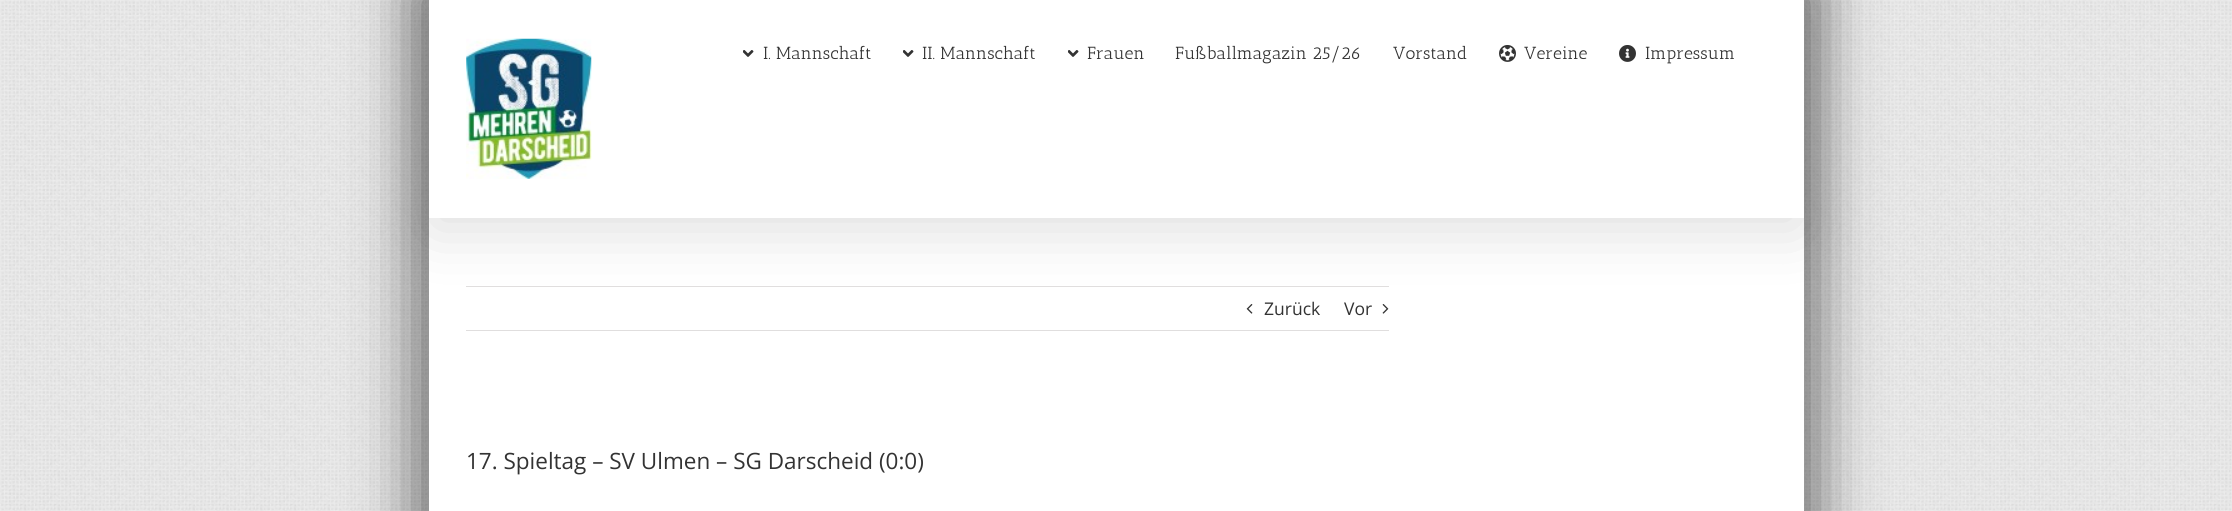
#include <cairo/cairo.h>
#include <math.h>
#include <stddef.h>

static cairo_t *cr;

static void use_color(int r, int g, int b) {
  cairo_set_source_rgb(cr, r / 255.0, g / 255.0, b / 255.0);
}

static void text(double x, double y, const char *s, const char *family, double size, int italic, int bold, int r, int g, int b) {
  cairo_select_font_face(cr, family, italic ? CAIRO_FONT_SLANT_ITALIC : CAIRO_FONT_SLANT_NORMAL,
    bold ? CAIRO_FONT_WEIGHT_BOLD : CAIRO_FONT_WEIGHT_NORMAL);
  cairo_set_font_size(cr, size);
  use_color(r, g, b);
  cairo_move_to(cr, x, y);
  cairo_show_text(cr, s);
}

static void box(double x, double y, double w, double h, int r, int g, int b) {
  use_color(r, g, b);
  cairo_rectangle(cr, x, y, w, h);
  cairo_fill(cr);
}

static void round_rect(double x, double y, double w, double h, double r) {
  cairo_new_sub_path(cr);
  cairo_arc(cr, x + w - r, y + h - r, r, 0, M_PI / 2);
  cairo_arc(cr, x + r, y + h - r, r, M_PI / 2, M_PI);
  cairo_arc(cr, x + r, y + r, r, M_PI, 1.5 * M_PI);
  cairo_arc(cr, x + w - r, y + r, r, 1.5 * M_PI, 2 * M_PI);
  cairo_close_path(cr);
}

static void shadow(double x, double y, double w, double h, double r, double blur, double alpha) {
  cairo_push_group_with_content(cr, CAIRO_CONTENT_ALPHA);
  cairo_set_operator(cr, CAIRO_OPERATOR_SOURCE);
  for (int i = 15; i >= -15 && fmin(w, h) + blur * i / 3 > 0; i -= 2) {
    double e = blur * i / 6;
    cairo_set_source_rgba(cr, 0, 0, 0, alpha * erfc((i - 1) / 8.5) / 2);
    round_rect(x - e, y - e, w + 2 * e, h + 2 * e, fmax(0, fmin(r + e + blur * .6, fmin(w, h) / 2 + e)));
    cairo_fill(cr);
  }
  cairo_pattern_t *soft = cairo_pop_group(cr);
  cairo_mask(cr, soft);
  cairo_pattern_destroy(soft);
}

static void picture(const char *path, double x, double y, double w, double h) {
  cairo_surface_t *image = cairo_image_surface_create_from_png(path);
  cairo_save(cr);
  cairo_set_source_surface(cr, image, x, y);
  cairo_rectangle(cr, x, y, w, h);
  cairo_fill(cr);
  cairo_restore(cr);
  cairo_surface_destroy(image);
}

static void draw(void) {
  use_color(255, 255, 255);
  cairo_paint(cr);
  picture("img_01.png", 0, 0, 2232, 511);
  use_color(0, 0, 0);
  shadow(416, -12, 1400, 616, 0, 31, 0.55);
  box(429, 218, 1375, 293, 255, 255, 255);
  box(466, 286, 923, 1, 224, 222, 222);
  picture("img_06.png", 1246, 304, 7, 10);
  picture("img_07.png", 1382, 304, 7, 10);
  use_color(0, 0, 0);
  shadow(431, 15, 1370, 213, 0, 31, 0.14);
  box(429, 0, 1375, 218, 255, 255, 255);
  picture("img_02.png", 466, 38, 126, 141);
  picture("img_03.png", 743, 50, 11, 7);
  picture("img_03.png", 903, 50, 11, 7);
  picture("img_03.png", 1068, 50, 11, 7);
  picture("img_04.png", 1499, 45, 17, 17);
  picture("img_05.png", 1619, 45, 17, 17);
  box(466, 330, 923, 1, 224, 222, 222);
  text(763, 59, "I. Mannschaft", "Antic Slab", 17.5, 0, 0, 51, 51, 51);
  text(922, 59, "II. Mannschaft", "Antic Slab", 17.5, 0, 0, 51, 51, 51);
  text(1087, 59, "Frauen", "Antic Slab", 17.5, 0, 0, 51, 51, 51);
  text(1175, 59, "Fußballmagazin 25/26", "Antic Slab", 17.5, 0, 0, 51, 51, 51);
  text(1393, 59, "Vorstand", "Antic Slab", 17.5, 0, 0, 51, 51, 51);
  text(1524, 59, "Vereine", "Antic Slab", 17.5, 0, 0, 51, 51, 51);
  text(1645, 59, "Impressum", "Antic Slab", 17.5, 0, 0, 51, 51, 51);
  text(1264, 315, "Zurück", "Open Sans", 17.5, 0, 0, 51, 51, 51);
  text(1344, 315, "Vor", "Open Sans", 17.5, 0, 0, 51, 51, 51);
  text(466, 469, "17. Spieltag – SV Ulmen – SG Darscheid (0:0)", "Open Sans", 22.5, 0, 0, 51, 51, 51);
}

int main(void) {
  cairo_surface_t *surface = cairo_image_surface_create(CAIRO_FORMAT_RGB24, 2232, 511);
  cr = cairo_create(surface);
  cairo_font_options_t *options = cairo_font_options_create();
  cairo_font_options_set_hint_metrics(options, CAIRO_HINT_METRICS_OFF);
  cairo_font_options_set_hint_style(options, CAIRO_HINT_STYLE_NONE);
  cairo_set_font_options(cr, options);
  cairo_set_miter_limit(cr, 4);
  draw();
  cairo_surface_write_to_png(surface, "out.png");
  cairo_font_options_destroy(options);
  cairo_destroy(cr);
  cairo_surface_destroy(surface);
  return 0;
}
